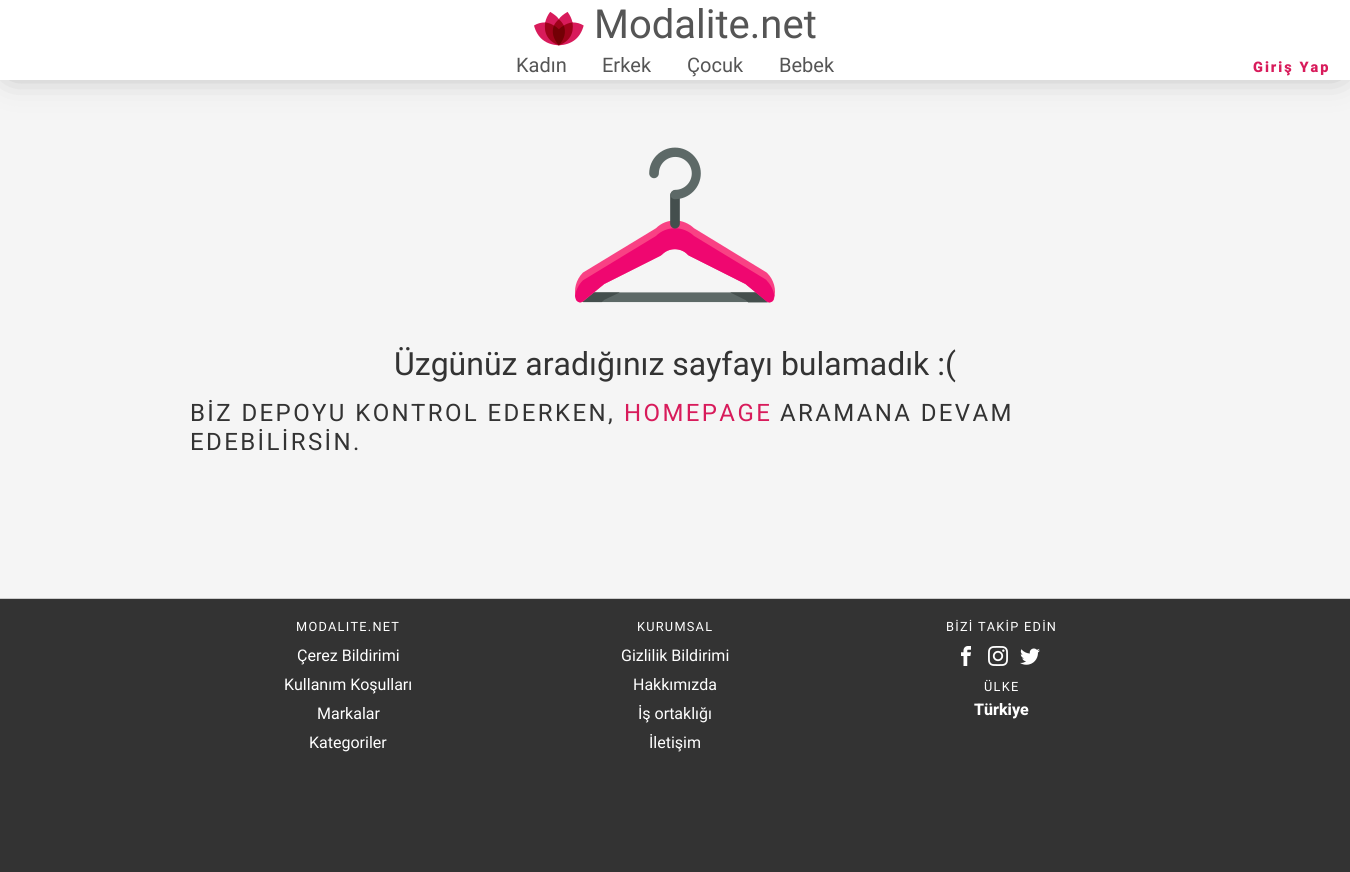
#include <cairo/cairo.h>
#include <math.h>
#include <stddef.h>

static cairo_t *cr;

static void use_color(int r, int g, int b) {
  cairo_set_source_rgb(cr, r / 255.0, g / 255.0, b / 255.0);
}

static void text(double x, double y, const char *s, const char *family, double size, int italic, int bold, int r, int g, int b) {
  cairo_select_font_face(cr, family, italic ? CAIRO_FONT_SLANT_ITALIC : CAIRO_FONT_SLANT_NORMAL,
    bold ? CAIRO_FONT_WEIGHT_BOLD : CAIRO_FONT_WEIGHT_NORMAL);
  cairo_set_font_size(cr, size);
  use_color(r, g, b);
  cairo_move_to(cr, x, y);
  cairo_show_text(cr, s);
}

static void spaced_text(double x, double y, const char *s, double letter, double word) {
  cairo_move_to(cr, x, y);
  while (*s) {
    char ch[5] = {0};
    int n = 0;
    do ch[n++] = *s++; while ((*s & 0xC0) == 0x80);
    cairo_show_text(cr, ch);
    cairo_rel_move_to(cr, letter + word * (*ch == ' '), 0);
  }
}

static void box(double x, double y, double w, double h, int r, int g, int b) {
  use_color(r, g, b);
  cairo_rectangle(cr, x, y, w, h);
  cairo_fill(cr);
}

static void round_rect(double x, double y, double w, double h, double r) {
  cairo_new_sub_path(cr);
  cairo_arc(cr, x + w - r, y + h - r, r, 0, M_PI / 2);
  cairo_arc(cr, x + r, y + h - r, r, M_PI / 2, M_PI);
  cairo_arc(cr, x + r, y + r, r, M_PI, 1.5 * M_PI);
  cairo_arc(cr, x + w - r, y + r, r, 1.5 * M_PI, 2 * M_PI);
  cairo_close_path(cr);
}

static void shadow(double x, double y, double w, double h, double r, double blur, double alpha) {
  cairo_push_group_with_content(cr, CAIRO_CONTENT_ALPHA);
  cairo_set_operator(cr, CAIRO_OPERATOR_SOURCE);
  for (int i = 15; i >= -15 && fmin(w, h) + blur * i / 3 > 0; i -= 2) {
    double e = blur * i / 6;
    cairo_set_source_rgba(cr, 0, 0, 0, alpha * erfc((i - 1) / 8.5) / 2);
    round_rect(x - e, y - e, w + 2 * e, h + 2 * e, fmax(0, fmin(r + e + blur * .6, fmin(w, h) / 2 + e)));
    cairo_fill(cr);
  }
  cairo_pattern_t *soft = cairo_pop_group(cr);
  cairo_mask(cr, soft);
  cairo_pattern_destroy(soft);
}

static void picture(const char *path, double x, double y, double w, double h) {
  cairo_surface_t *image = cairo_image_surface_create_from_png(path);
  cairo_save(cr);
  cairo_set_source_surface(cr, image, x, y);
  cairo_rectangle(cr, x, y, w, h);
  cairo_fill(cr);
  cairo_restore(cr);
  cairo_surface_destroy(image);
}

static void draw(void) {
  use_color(245, 245, 245);
  cairo_paint(cr);
  use_color(0, 0, 0);
  shadow(11, 11, 1328, 58, 0, 17.5, 0.4);
  box(0, 0, 1350, 80, 255, 255, 255);
  picture("img_01.png", 534, 11, 50, 35);
  picture("img_02.png", 575, 147, 200, 156);
  box(0, 599, 1350, 273, 51, 51, 51);
  box(0, 598, 1350, 1, 204, 204, 204);
  picture("img_03.png", 961, 646, 10, 20);
  picture("img_04.png", 988, 646, 20, 20);
  picture("img_05.png", 1020, 648, 20, 17);
  text(594, 38, "Modalite.net", "Roboto", 40, 0, 0, 85, 85, 85);
  text(516, 72, "Kadın", "Roboto", 20, 0, 0, 85, 85, 85);
  text(602, 72, "Erkek", "Roboto", 20, 0, 0, 85, 85, 85);
  text(687, 72, "Çocuk", "Roboto", 20, 0, 0, 85, 85, 85);
  text(779, 72, "Bebek", "Roboto", 20, 0, 0, 85, 85, 85);
  cairo_select_font_face(cr, "Roboto Black", CAIRO_FONT_SLANT_NORMAL, CAIRO_FONT_WEIGHT_NORMAL);
  cairo_set_font_size(cr, 14.5);
  use_color(216, 27, 91);
  spaced_text(1253, 72, "Giriş Yap", 2, 0);
  text(394, 375, "Üzgünüz aradığınız sayfayı bulamadık :(", "Roboto", 32, 0, 0, 51, 51, 51);
  cairo_set_font_size(cr, 24);
  spaced_text(190, 421, "BİZ DEPOYU KONTROL EDERKEN,", 2.4, 0);
  use_color(216, 27, 91);
  spaced_text(624, 421, "HOMEPAGE", 2.4, 0);
  use_color(51, 51, 51);
  spaced_text(780, 421, "ARAMANA DEVAM", 2.4, 0);
  spaced_text(190, 450, "EDEBİLİRSİN.", 2.4, 0);
  cairo_set_font_size(cr, 12.75);
  use_color(255, 255, 255);
  spaced_text(296, 631, "MODALITE.NET", 1.25, 0);
  text(297, 661, "Çerez Bildirimi", "Roboto", 16, 0, 0, 255, 255, 255);
  text(284, 690, "Kullanım Koşulları", "Roboto", 16, 0, 0, 255, 255, 255);
  text(317, 719, "Markalar", "Roboto", 16, 0, 0, 255, 255, 255);
  text(309, 748, "Kategoriler", "Roboto", 16, 0, 0, 255, 255, 255);
  cairo_set_font_size(cr, 12.75);
  spaced_text(637, 631, "KURUMSAL", 1.25, 0);
  text(621, 661, "Gizlilik Bildirimi", "Roboto", 16, 0, 0, 255, 255, 255);
  text(633, 690, "Hakkımızda", "Roboto", 16, 0, 0, 255, 255, 255);
  text(638, 719, "İş ortaklığı", "Roboto", 16, 0, 0, 255, 255, 255);
  text(649, 748, "İletişim", "Roboto", 16, 0, 0, 255, 255, 255);
  cairo_set_font_size(cr, 12.75);
  spaced_text(946, 631, "BİZİ TAKİP EDİN", 1.25, 0);
  spaced_text(984, 691, "ÜLKE", 1.25, 0);
  text(974, 715, "Türkiye", "Roboto ExtraBold", 16, 0, 0, 255, 255, 255);
}

int main(void) {
  cairo_surface_t *surface = cairo_image_surface_create(CAIRO_FORMAT_RGB24, 1350, 872);
  cr = cairo_create(surface);
  cairo_font_options_t *options = cairo_font_options_create();
  cairo_font_options_set_hint_metrics(options, CAIRO_HINT_METRICS_OFF);
  cairo_font_options_set_hint_style(options, CAIRO_HINT_STYLE_NONE);
  cairo_set_font_options(cr, options);
  cairo_set_miter_limit(cr, 4);
  draw();
  cairo_surface_write_to_png(surface, "out.png");
  cairo_font_options_destroy(options);
  cairo_destroy(cr);
  cairo_surface_destroy(surface);
  return 0;
}
